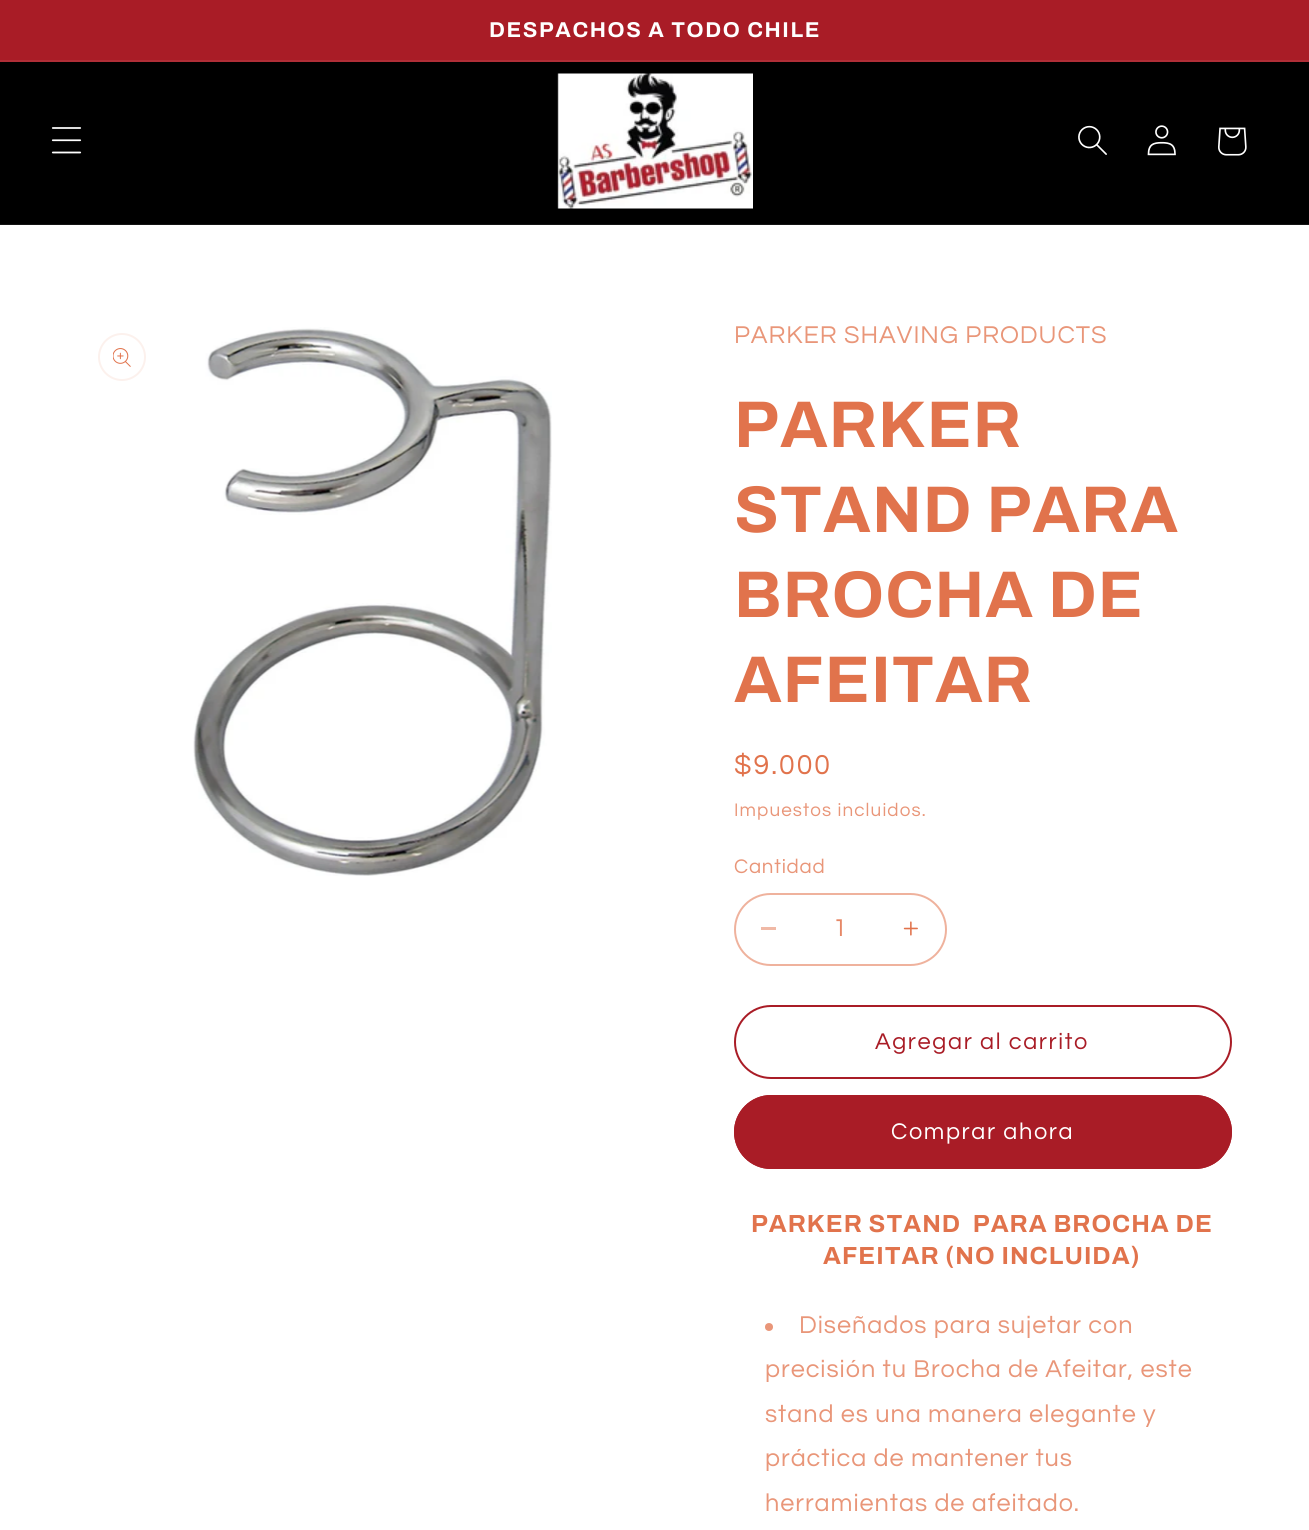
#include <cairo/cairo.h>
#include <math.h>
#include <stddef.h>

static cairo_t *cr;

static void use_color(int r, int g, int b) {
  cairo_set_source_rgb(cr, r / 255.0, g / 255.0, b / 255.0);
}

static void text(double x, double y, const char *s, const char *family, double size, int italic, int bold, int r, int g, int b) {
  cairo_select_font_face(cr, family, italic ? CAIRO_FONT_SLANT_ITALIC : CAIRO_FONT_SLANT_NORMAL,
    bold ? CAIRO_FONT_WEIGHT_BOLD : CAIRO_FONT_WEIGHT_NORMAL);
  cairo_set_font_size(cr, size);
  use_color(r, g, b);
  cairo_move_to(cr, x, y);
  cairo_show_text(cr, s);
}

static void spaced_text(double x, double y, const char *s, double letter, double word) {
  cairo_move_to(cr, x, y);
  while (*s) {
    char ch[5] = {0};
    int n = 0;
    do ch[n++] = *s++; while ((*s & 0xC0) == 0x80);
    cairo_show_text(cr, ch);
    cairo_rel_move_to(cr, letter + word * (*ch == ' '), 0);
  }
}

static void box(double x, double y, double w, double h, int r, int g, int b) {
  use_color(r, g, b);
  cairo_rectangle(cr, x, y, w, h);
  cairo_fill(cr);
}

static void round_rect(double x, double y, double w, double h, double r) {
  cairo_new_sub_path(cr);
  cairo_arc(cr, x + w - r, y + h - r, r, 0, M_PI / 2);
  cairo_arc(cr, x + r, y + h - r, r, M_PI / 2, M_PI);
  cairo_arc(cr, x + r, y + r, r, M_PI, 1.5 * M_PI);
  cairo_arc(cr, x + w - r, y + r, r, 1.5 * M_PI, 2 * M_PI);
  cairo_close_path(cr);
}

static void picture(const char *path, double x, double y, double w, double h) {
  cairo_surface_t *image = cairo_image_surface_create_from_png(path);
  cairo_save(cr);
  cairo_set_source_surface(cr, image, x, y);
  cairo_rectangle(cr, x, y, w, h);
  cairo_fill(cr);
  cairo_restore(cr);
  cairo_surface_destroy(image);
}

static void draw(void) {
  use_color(255, 255, 255);
  cairo_paint(cr);
  box(0, 0, 1309, 60, 169, 28, 38);
  box(0, 60, 1309, 2, 176, 46, 55);
  box(0, 62, 1309, 162, 0, 0, 0);
  box(0, 224, 1309, 1, 20, 20, 20);
  picture("img_01.png", 51, 127, 31, 27);
  picture("img_02.png", 557, 73, 196, 136);
  picture("img_03.png", 1078, 125, 29, 30);
  picture("img_04.png", 1147, 125, 29, 31);
  picture("img_05.png", 1218, 127, 29, 29);
  cairo_arc(cr, 122, 357, 23, 0, 2 * M_PI);
  use_color(252, 241, 237);
  cairo_stroke(cr);
  picture("img_06.png", 113, 348, 18, 19);
  picture("img_07.png", 193, 327, 359, 549);
  box(761, 927, 15, 3, 240, 185, 166);
  picture("img_08.png", 903, 921, 15, 15);
  round_rect(735, 894, 211, 71, 35.5);
  use_color(239, 178, 157);
  cairo_stroke(cr);
  round_rect(735, 1006, 496, 72, 36);
  use_color(169, 28, 38);
  cairo_stroke(cr);
  round_rect(734, 1095, 498, 74, 37);
  cairo_fill(cr);
  round_rect(735, 1096, 496, 72, 36);
  cairo_stroke(cr);
  use_color(233, 150, 121);
  cairo_arc(cr, 769, 1327, 4, 0, 2 * M_PI);
  cairo_fill(cr);
  cairo_select_font_face(cr, "Archivo", CAIRO_FONT_SLANT_NORMAL, CAIRO_FONT_WEIGHT_BOLD);
  cairo_set_font_size(cr, 21.5);
  use_color(255, 255, 255);
  spaced_text(489, 37, "DESPACHOS A TODO CHILE", 1.6, 0);
  cairo_select_font_face(cr, "Questrial", CAIRO_FONT_SLANT_NORMAL, CAIRO_FONT_WEIGHT_NORMAL);
  cairo_set_font_size(cr, 25.25);
  use_color(233, 150, 121);
  spaced_text(734, 343, "PARKER SHAVING PRODUCTS", 0.95, 0);
  cairo_select_font_face(cr, "Archivo", CAIRO_FONT_SLANT_NORMAL, CAIRO_FONT_WEIGHT_BOLD);
  cairo_set_font_size(cr, 66);
  use_color(225, 115, 76);
  spaced_text(734, 447, "PARKER", 1, 0);
  spaced_text(734, 532, "STAND PARA", 1, 0);
  spaced_text(734, 617, "BROCHA DE", 1, 0);
  spaced_text(734, 702, "AFEITAR", 1, 0);
  cairo_select_font_face(cr, "Questrial", CAIRO_FONT_SLANT_NORMAL, CAIRO_FONT_WEIGHT_NORMAL);
  cairo_set_font_size(cr, 28.5);
  spaced_text(734, 774, "$9.000", 2, 0);
  cairo_set_font_size(cr, 18.9);
  use_color(233, 150, 121);
  spaced_text(734, 816, "Impuestos incluidos.", 1.1, 0);
  cairo_set_font_size(cr, 20.5);
  spaced_text(734, 873, "Cantidad", 0.75, 0);
  text(833, 936, "1", "Questrial", 25.25, 0, 0, 230, 136, 103);
  cairo_set_font_size(cr, 23.6);
  use_color(169, 28, 38);
  spaced_text(875, 1049, "Agregar al carrito", 1.6, 0);
  use_color(255, 255, 255);
  spaced_text(891, 1139, "Comprar ahora", 1.6, 0);
  cairo_select_font_face(cr, "Archivo", CAIRO_FONT_SLANT_NORMAL, CAIRO_FONT_WEIGHT_BOLD);
  cairo_set_font_size(cr, 24.75);
  use_color(225, 115, 76);
  spaced_text(751, 1232, "PARKER STAND  PARA BROCHA DE", 1, 0);
  spaced_text(823, 1264, "AFEITAR (NO INCLUIDA)", 1, 0);
  cairo_select_font_face(cr, "Questrial", CAIRO_FONT_SLANT_NORMAL, CAIRO_FONT_WEIGHT_NORMAL);
  cairo_set_font_size(cr, 25.25);
  use_color(233, 150, 121);
  spaced_text(799, 1333, "Diseñados para sujetar con", 0.95, 0);
  spaced_text(765, 1377, "precisión tu Brocha de Afeitar, este", 0.95, 0);
  spaced_text(765, 1422, "stand es una manera elegante y", 0.95, 0);
  spaced_text(765, 1466, "práctica de mantener tus", 0.95, 0);
  spaced_text(765, 1511, "herramientas de afeitado.", 0.95, 0);
}

int main(void) {
  cairo_surface_t *surface = cairo_image_surface_create(CAIRO_FORMAT_RGB24, 1309, 1530);
  cr = cairo_create(surface);
  cairo_font_options_t *options = cairo_font_options_create();
  cairo_font_options_set_hint_metrics(options, CAIRO_HINT_METRICS_OFF);
  cairo_font_options_set_hint_style(options, CAIRO_HINT_STYLE_NONE);
  cairo_set_font_options(cr, options);
  cairo_set_miter_limit(cr, 4);
  draw();
  cairo_surface_write_to_png(surface, "out.png");
  cairo_font_options_destroy(options);
  cairo_destroy(cr);
  cairo_surface_destroy(surface);
  return 0;
}
